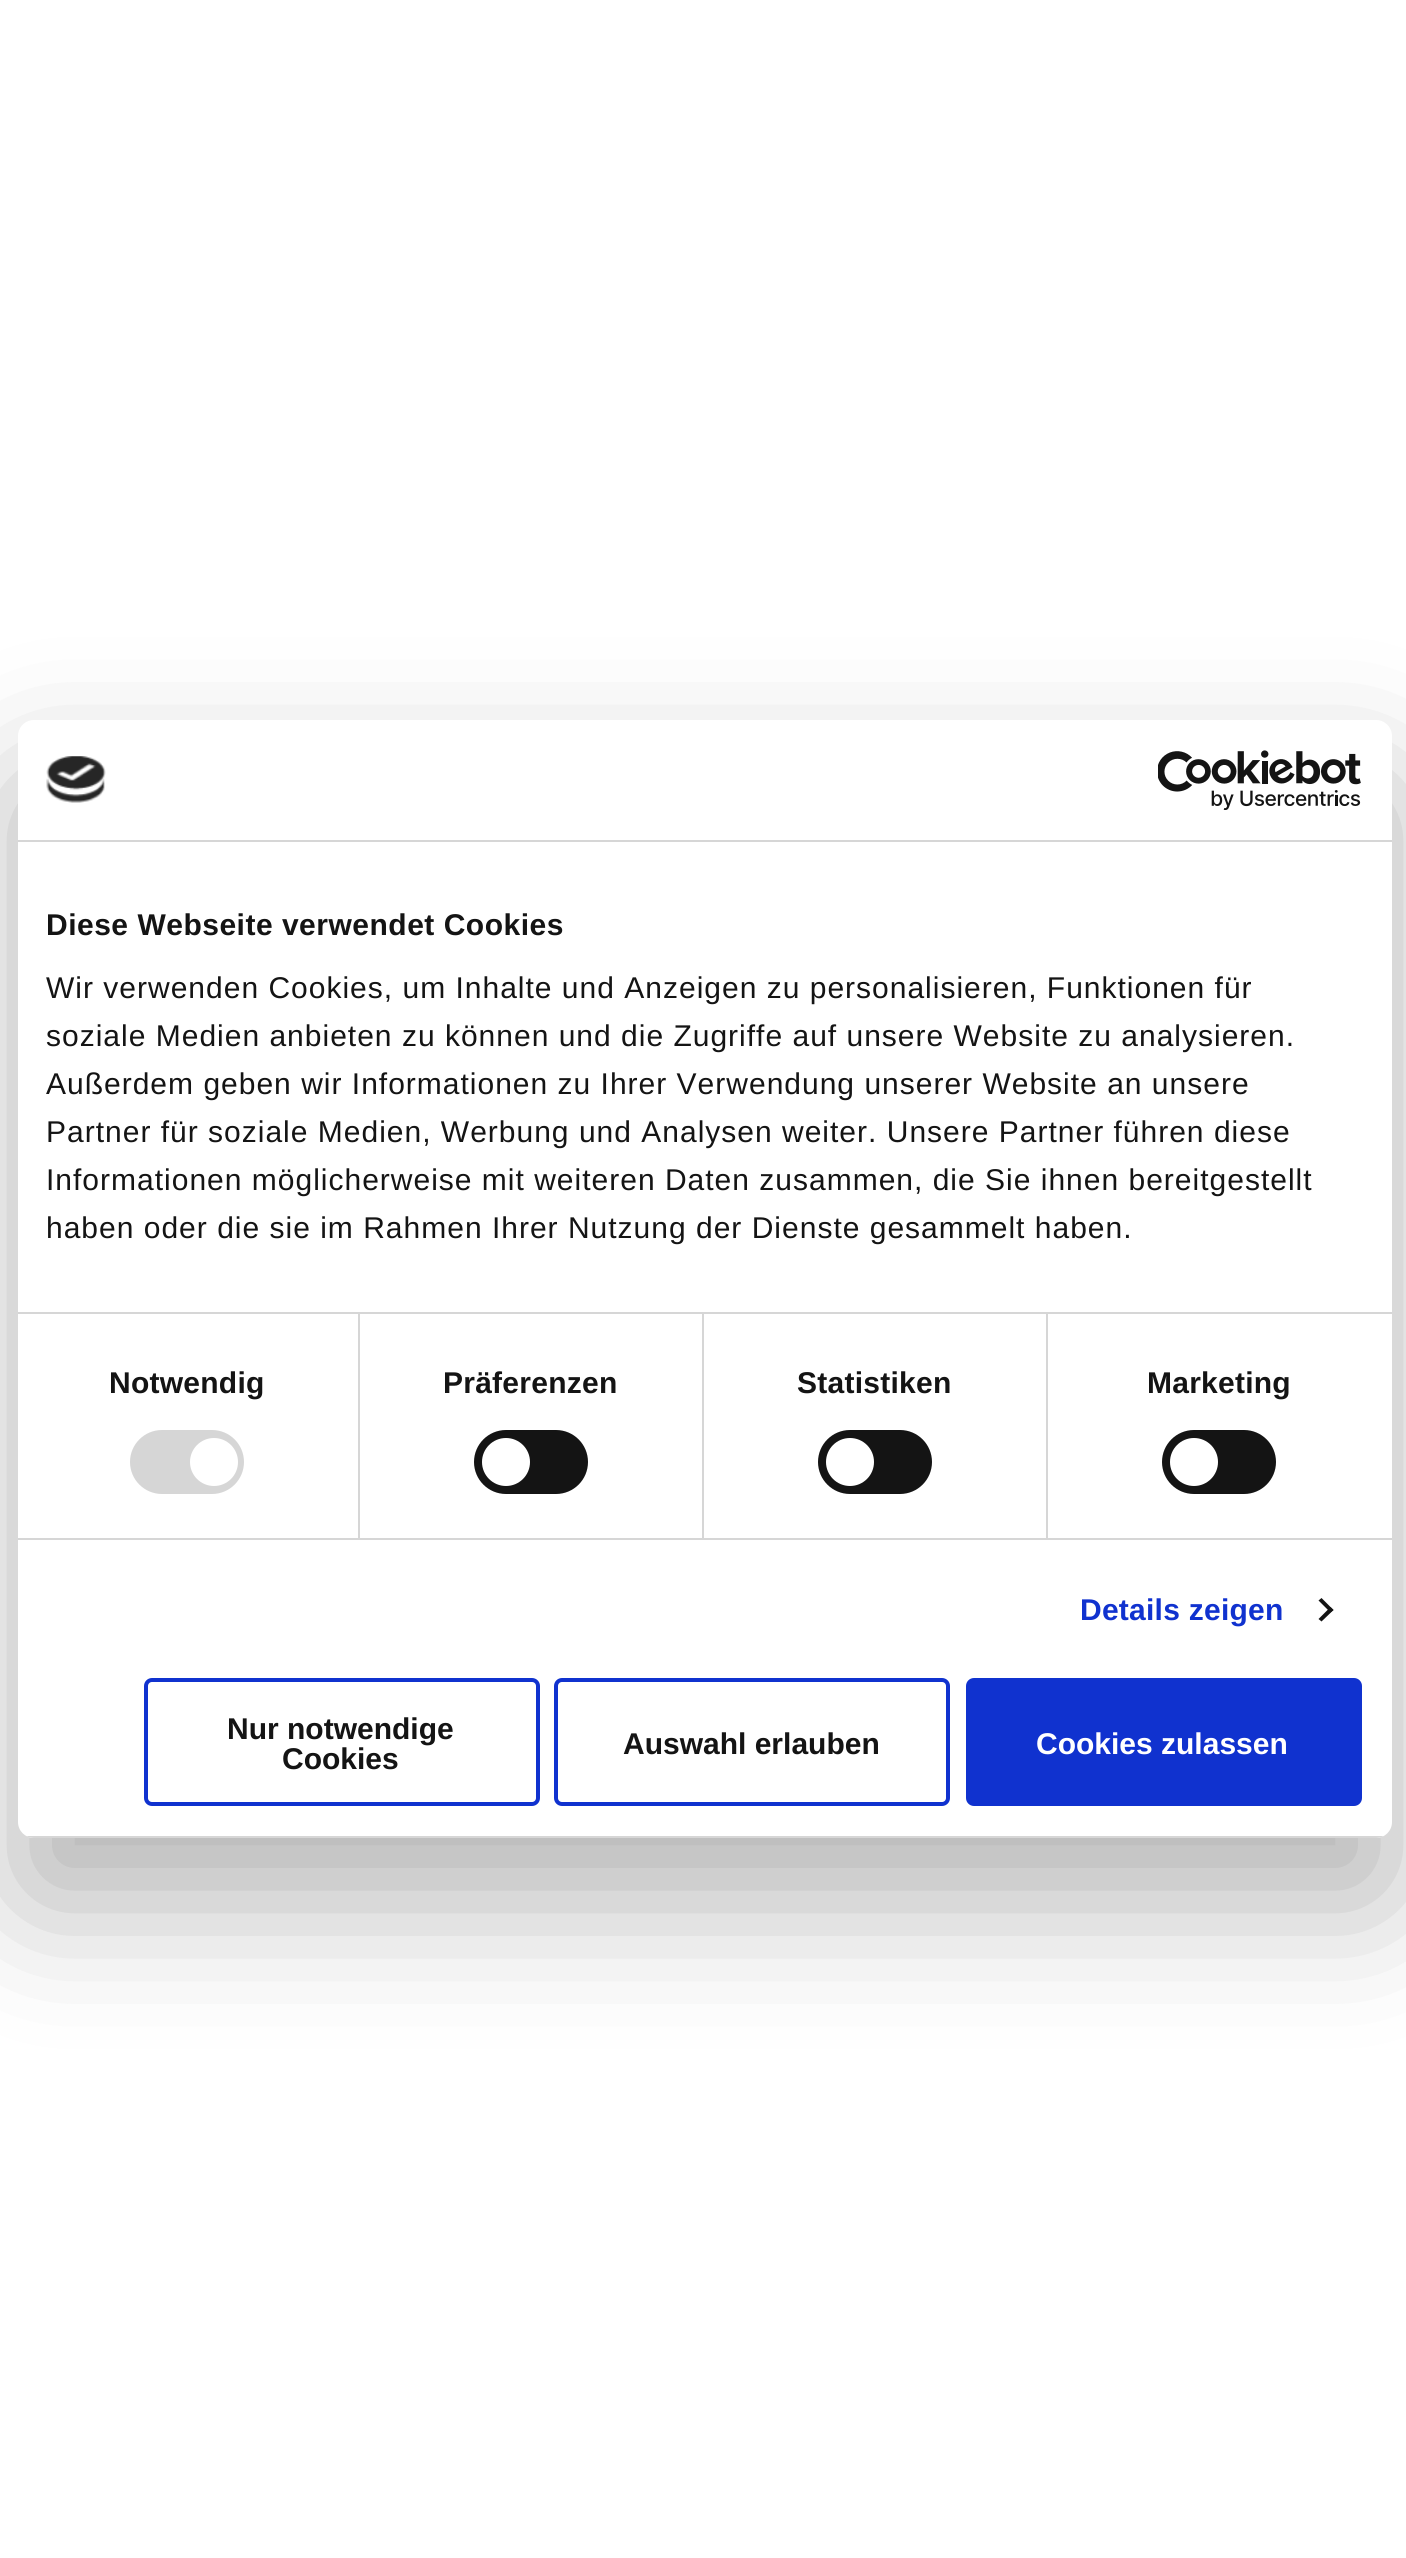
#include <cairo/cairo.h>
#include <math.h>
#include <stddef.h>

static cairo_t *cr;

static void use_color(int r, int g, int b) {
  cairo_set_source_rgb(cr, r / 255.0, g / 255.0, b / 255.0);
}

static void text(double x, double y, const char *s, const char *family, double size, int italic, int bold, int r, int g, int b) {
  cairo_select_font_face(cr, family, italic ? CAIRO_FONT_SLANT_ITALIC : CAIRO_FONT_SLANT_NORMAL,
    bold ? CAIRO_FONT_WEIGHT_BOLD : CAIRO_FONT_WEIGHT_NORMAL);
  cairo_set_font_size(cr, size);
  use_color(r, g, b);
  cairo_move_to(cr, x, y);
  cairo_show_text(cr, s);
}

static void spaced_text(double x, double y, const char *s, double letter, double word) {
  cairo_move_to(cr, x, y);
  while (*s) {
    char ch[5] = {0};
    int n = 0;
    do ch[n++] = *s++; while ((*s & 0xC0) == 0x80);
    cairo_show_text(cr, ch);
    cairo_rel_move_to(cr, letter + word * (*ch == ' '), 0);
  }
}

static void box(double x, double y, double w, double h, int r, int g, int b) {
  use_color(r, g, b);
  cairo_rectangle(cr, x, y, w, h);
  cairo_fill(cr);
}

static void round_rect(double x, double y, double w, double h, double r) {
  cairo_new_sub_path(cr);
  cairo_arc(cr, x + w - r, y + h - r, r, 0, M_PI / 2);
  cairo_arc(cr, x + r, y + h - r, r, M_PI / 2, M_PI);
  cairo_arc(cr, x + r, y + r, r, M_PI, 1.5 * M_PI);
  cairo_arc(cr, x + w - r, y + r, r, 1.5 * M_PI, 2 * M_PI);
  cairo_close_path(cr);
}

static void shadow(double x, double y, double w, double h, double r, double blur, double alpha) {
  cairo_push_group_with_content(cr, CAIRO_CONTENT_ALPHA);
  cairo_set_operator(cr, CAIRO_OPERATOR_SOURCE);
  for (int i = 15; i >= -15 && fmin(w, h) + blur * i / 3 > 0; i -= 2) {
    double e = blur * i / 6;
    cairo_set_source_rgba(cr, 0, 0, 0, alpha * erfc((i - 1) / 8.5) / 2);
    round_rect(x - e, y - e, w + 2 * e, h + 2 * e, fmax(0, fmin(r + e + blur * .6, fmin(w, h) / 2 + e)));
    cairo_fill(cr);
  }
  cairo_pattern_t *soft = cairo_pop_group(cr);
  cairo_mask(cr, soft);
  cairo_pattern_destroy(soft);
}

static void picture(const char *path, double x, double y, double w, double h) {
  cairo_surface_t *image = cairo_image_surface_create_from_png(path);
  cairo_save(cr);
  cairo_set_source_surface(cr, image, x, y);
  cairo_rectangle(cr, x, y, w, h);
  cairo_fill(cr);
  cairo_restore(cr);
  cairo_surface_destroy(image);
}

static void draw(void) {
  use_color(255, 255, 255);
  cairo_paint(cr);
  use_color(0, 0, 0);
  shadow(18, 784, 1374, 1118, 16, 68, 0.3);
  use_color(255, 255, 255);
  round_rect(18, 720, 1374, 1118, 16);
  cairo_fill(cr);
  box(18, 840, 1374, 2, 214, 214, 214);
  picture("img_01.png", 46, 756, 60, 47);
  picture("img_02.png", 1158, 750, 203, 60);
  box(18, 1312, 1374, 2, 214, 214, 214);
  box(18, 1538, 1374, 2, 214, 214, 214);
  box(358, 1314, 2, 224, 214, 214, 214);
  round_rect(130, 1430, 114, 64, 32);
  cairo_fill(cr);
  use_color(255, 255, 255);
  cairo_arc(cr, 214, 1462, 24, 0, 2 * M_PI);
  cairo_fill(cr);
  box(702, 1314, 2, 224, 214, 214, 214);
  use_color(20, 20, 20);
  round_rect(474, 1430, 114, 64, 32);
  cairo_fill(cr);
  use_color(255, 255, 255);
  cairo_arc(cr, 506, 1462, 24, 0, 2 * M_PI);
  cairo_fill(cr);
  box(1046, 1314, 2, 224, 214, 214, 214);
  use_color(20, 20, 20);
  round_rect(818, 1430, 114, 64, 32);
  cairo_fill(cr);
  use_color(255, 255, 255);
  cairo_arc(cr, 850, 1462, 24, 0, 2 * M_PI);
  cairo_fill(cr);
  use_color(20, 20, 20);
  round_rect(1162, 1430, 114, 64, 32);
  cairo_fill(cr);
  use_color(255, 255, 255);
  cairo_arc(cr, 1194, 1462, 24, 0, 2 * M_PI);
  cairo_fill(cr);
  use_color(20, 20, 20);
  cairo_new_path(cr);
  cairo_move_to(cr, 1321.5, 1598);
  cairo_line_to(cr, 1333.5, 1610);
  cairo_line_to(cr, 1330.5, 1612.5);
  cairo_line_to(cr, 1318.5, 1600.5);
  cairo_close_path(cr);
  cairo_fill(cr);
  cairo_new_path(cr);
  cairo_move_to(cr, 1330.5, 1607);
  cairo_line_to(cr, 1333.5, 1610);
  cairo_line_to(cr, 1321.5, 1621.5);
  cairo_line_to(cr, 1318.5, 1619);
  cairo_close_path(cr);
  cairo_fill(cr);
  cairo_save(cr);
  round_rect(18, 720, 1374, 1118, 16);
  cairo_clip(cr);
  box(18, 1836, 1374, 2, 214, 214, 214);
  cairo_restore(cr);
  round_rect(146, 1680, 392, 124, 6);
  use_color(16, 50, 207);
  cairo_set_line_width(cr, 4);
  cairo_stroke(cr);
  round_rect(556, 1680, 392, 124, 6);
  cairo_stroke(cr);
  round_rect(968, 1680, 392, 124, 6);
  cairo_fill_preserve(cr);
  cairo_stroke(cr);
  cairo_select_font_face(cr, "Liberation Sans", CAIRO_FONT_SLANT_NORMAL, CAIRO_FONT_WEIGHT_BOLD);
  cairo_set_font_size(cr, 30);
  use_color(20, 20, 20);
  spaced_text(46, 935, "Diese Webseite verwendet Cookies", 0.5, 0);
  cairo_select_font_face(cr, "Liberation Sans", CAIRO_FONT_SLANT_NORMAL, CAIRO_FONT_WEIGHT_NORMAL);
  spaced_text(46, 998, "Wir verwenden Cookies, um Inhalte und Anzeigen zu personalisieren, Funktionen für", 1, 0);
  spaced_text(46, 1046, "soziale Medien anbieten zu können und die Zugriffe auf unsere Website zu analysieren.", 1, 0);
  spaced_text(46, 1094, "Außerdem geben wir Informationen zu Ihrer Verwendung unserer Website an unsere", 1, 0);
  spaced_text(46, 1142, "Partner für soziale Medien, Werbung und Analysen weiter. Unsere Partner führen diese", 1, 0);
  spaced_text(46, 1190, "Informationen möglicherweise mit weiteren Daten zusammen, die Sie ihnen bereitgestellt", 1, 0);
  spaced_text(46, 1238, "haben oder die sie im Rahmen Ihrer Nutzung der Dienste gesammelt haben.", 1, 0);
  cairo_select_font_face(cr, "Liberation Sans", CAIRO_FONT_SLANT_NORMAL, CAIRO_FONT_WEIGHT_BOLD);
  spaced_text(109, 1393, "Notwendig", 0.25, 0);
  spaced_text(443, 1393, "Präferenzen", 0.25, 0);
  spaced_text(797, 1393, "Statistiken", 0.25, 0);
  spaced_text(1147, 1393, "Marketing", 0.25, 0);
  use_color(16, 50, 207);
  spaced_text(1080, 1620, "Details zeigen", 0.25, 0);
  text(227, 1739, "Nur notwendige", "Liberation Sans", 30, 0, 1, 20, 20, 20);
  text(282, 1769, "Cookies", "Liberation Sans", 30, 0, 1, 20, 20, 20);
  text(623, 1754, "Auswahl erlauben", "Liberation Sans", 30, 0, 1, 20, 20, 20);
  text(1036, 1754, "Cookies zulassen", "Liberation Sans", 30, 0, 1, 255, 255, 255);
}

int main(void) {
  cairo_surface_t *surface = cairo_image_surface_create(CAIRO_FORMAT_RGB24, 1406, 2558);
  cr = cairo_create(surface);
  cairo_font_options_t *options = cairo_font_options_create();
  cairo_font_options_set_hint_metrics(options, CAIRO_HINT_METRICS_OFF);
  cairo_font_options_set_hint_style(options, CAIRO_HINT_STYLE_NONE);
  cairo_set_font_options(cr, options);
  cairo_set_miter_limit(cr, 4);
  draw();
  cairo_surface_write_to_png(surface, "out.png");
  cairo_font_options_destroy(options);
  cairo_destroy(cr);
  cairo_surface_destroy(surface);
  return 0;
}
